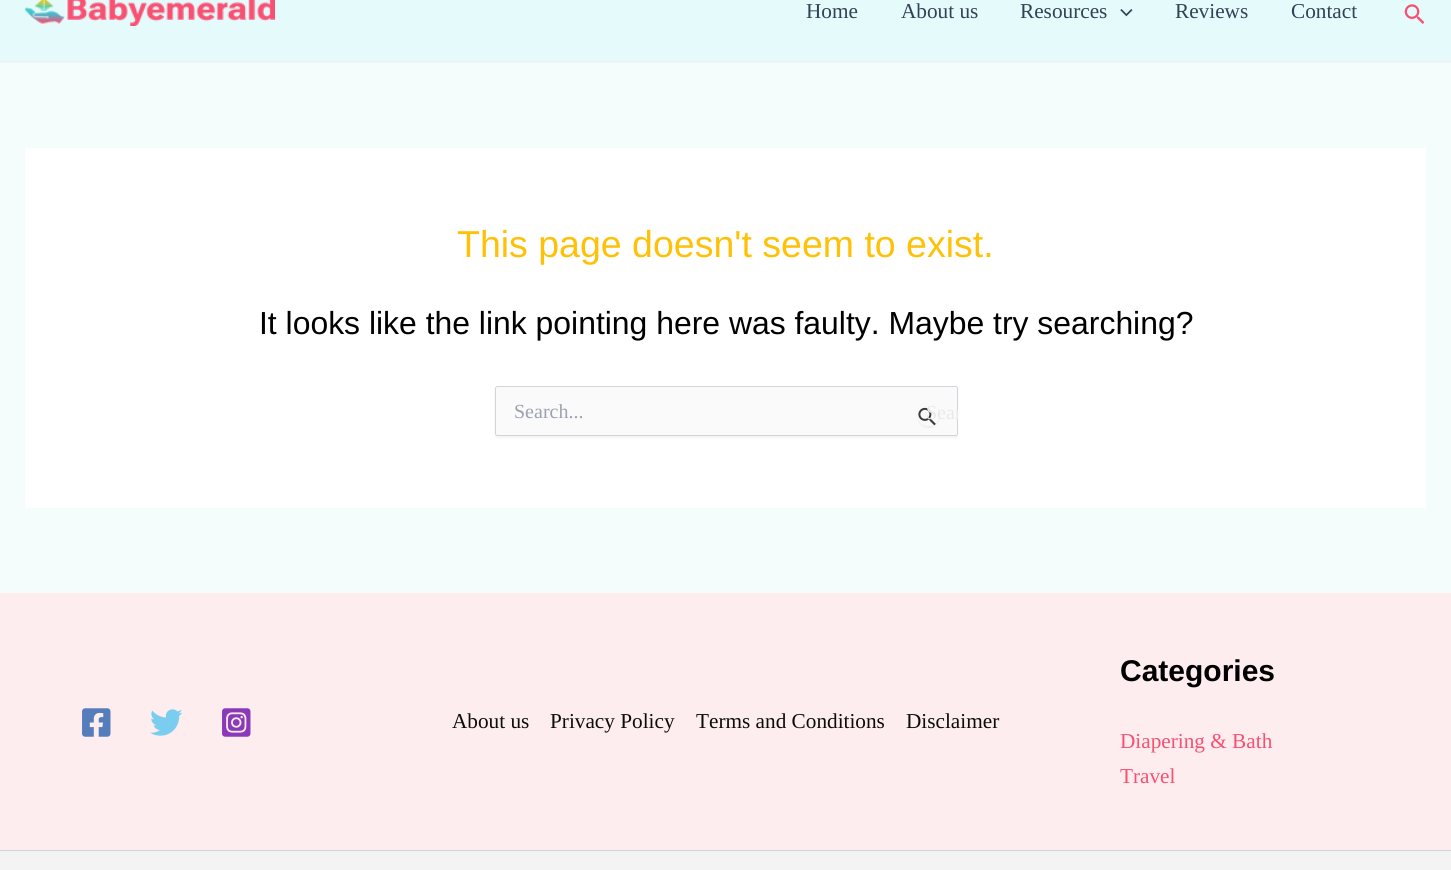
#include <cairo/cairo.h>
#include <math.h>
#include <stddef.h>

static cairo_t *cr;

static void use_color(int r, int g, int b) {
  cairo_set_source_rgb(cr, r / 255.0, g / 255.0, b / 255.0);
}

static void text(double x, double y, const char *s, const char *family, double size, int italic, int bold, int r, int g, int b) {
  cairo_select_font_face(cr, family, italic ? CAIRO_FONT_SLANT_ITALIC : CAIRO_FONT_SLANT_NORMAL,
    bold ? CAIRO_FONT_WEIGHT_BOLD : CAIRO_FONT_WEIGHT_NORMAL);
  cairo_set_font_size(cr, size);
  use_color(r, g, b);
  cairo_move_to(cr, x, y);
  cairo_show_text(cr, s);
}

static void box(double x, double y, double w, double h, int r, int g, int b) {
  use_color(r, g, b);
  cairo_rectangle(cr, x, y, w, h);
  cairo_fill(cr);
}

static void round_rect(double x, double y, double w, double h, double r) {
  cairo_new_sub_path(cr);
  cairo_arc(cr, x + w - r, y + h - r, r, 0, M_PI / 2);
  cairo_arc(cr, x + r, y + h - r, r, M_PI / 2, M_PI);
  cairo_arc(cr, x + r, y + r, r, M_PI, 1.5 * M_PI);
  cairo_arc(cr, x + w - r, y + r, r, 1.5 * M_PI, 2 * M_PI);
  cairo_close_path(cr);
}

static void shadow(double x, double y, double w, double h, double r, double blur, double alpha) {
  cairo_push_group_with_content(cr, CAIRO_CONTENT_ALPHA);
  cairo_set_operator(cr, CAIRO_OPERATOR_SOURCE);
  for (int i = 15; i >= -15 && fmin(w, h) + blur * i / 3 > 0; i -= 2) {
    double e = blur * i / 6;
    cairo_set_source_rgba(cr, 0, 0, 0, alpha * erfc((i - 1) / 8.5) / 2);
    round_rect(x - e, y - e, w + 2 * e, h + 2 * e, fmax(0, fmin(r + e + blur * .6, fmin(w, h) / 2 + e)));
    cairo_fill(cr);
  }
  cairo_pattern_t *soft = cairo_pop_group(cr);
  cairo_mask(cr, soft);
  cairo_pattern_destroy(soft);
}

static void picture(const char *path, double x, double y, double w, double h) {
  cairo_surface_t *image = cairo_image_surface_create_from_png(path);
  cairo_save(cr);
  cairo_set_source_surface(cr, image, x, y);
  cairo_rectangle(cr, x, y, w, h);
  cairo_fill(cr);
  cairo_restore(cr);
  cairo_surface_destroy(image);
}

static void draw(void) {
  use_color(244, 252, 252);
  cairo_paint(cr);
  box(0, 0, 1451, 63, 229, 250, 250);
  box(0, 61, 1451, 1, 249, 236, 241);
  picture("img_01.png", 25, 0, 250, 26);
  picture("img_02.png", 1120, 9, 13, 8);
  picture("img_03.png", 1404, 4, 20, 20);
  box(25, 148, 1401, 360, 255, 255, 255);
  use_color(0, 0, 0);
  shadow(495, 388, 463, 50, 2.5, 1, 0.05);
  use_color(250, 250, 250);
  round_rect(495.5, 386.5, 462, 49, 2);
  cairo_fill_preserve(cr);
  use_color(209, 213, 219);
  cairo_set_line_width(cr, 1);
  cairo_stroke(cr);
  cairo_save(cr);
  cairo_set_fill_rule(cr, CAIRO_FILL_RULE_EVEN_ODD);
  cairo_new_path(cr);
  cairo_move_to(cr, 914, 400);
  cairo_line_to(cr, 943, 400);
  cairo_line_to(cr, 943, 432);
  cairo_line_to(cr, 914, 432);
  cairo_close_path(cr);
  cairo_move_to(cr, 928.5, 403);
  cairo_curve_to(cr, 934.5, 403, 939, 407.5, 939, 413.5);
  cairo_line_to(cr, 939, 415.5);
  cairo_curve_to(cr, 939, 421.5, 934.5, 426, 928.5, 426);
  cairo_curve_to(cr, 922.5, 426, 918, 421.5, 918, 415.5);
  cairo_line_to(cr, 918, 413.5);
  cairo_curve_to(cr, 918, 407.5, 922.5, 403, 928.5, 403);
  cairo_close_path(cr);
  cairo_clip(cr);
  use_color(0, 0, 0);
  shadow(918, 404, 21, 24, 10.5, 1, 0.05);
  cairo_restore(cr);
  picture("img_04.png", 918, 407, 18, 19);
  box(0, 593, 1451, 257, 254, 237, 238);
  picture("img_05.png", 82, 708, 29, 29);
  picture("img_06.png", 150, 709, 33, 27);
  picture("img_07.png", 222, 708, 29, 29);
  box(0, 851, 1451, 19, 243, 243, 243);
  box(0, 850, 1451, 1, 209, 213, 219);
  text(806, 18, "Home", "Liberation Serif", 21.25, 0, 0, 51, 65, 85);
  text(901, 18, "About us", "Liberation Serif", 21.25, 0, 0, 51, 65, 85);
  text(1020, 18, "Resources", "Liberation Serif", 21.25, 0, 0, 51, 65, 85);
  text(1175, 18, "Reviews", "Liberation Serif", 21.25, 0, 0, 51, 65, 85);
  text(1291, 18, "Contact", "Liberation Serif", 21.25, 0, 0, 51, 65, 85);
  text(457, 257, "This page doesn't seem to exist.", "Liberation Sans", 37.5, 0, 0, 255, 193, 7);
  text(259, 334, "It looks like the link pointing here was faulty. Maybe try searching?", "Liberation Sans", 31.9, 0, 0, 0, 0, 0);
  text(514, 418, "Search...", "Liberation Serif", 20, 0, 0, 156, 163, 175);
  cairo_save(cr);
  round_rect(901, 386, 57, 53, 2.5);
  cairo_clip(cr);
  text(926, 419, "Sear", "Liberation Serif", 20, 0, 0, 233, 233, 234);
  cairo_restore(cr);
  text(452, 728, "About us", "Liberation Serif", 21.25, 0, 0, 12, 12, 12);
  text(550, 728, "Privacy Policy", "Liberation Serif", 21.25, 0, 0, 12, 12, 12);
  text(696, 728, "Terms and Conditions", "Liberation Serif", 21.25, 0, 0, 12, 12, 12);
  text(906, 728, "Disclaimer", "Liberation Serif", 21.25, 0, 0, 12, 12, 12);
  text(1120, 681, "Categories", "Liberation Sans", 30, 0, 1, 0, 0, 0);
  text(1120, 748, "Diapering & Bath", "Liberation Serif", 21.25, 0, 0, 248, 80, 114);
  text(1120, 783, "Travel", "Liberation Serif", 21.25, 0, 0, 248, 80, 114);
}

int main(void) {
  cairo_surface_t *surface = cairo_image_surface_create(CAIRO_FORMAT_RGB24, 1451, 870);
  cr = cairo_create(surface);
  cairo_font_options_t *options = cairo_font_options_create();
  cairo_font_options_set_hint_metrics(options, CAIRO_HINT_METRICS_OFF);
  cairo_font_options_set_hint_style(options, CAIRO_HINT_STYLE_NONE);
  cairo_set_font_options(cr, options);
  cairo_set_miter_limit(cr, 4);
  draw();
  cairo_surface_write_to_png(surface, "out.png");
  cairo_font_options_destroy(options);
  cairo_destroy(cr);
  cairo_surface_destroy(surface);
  return 0;
}
